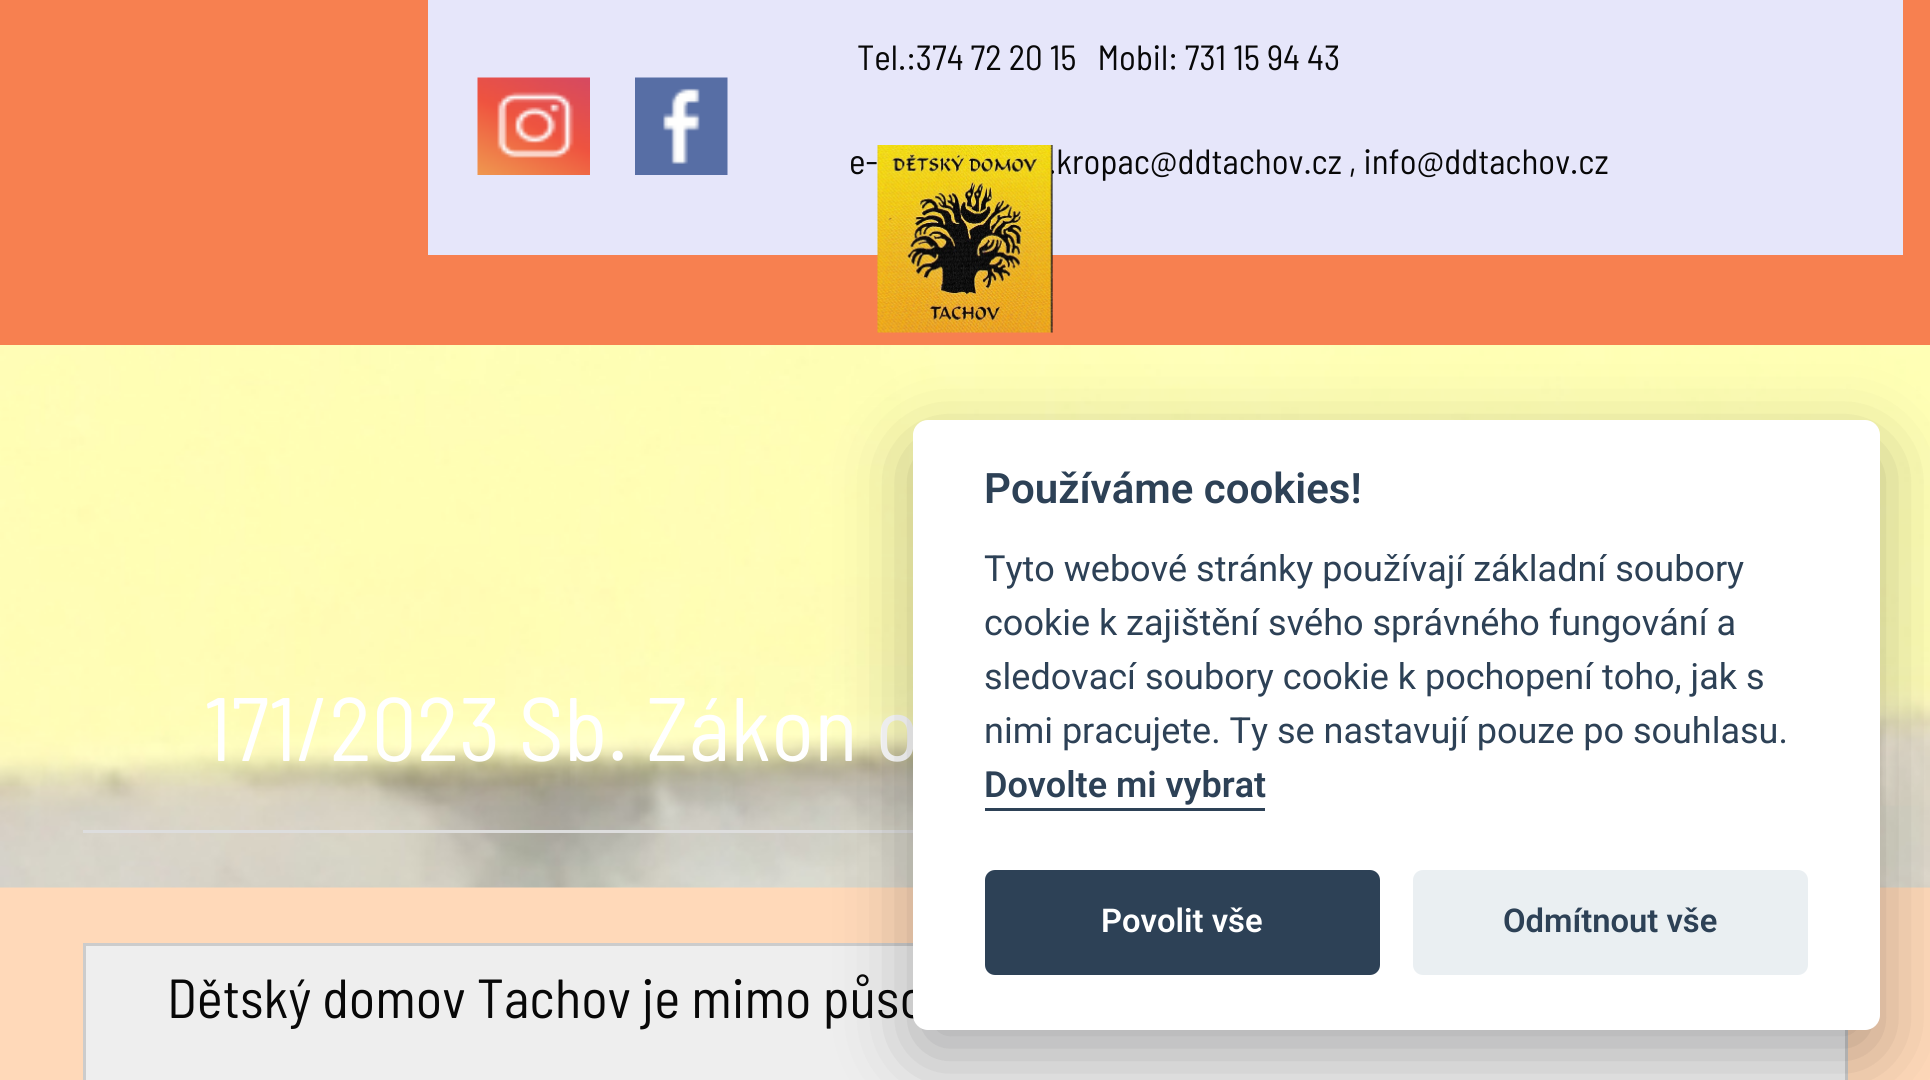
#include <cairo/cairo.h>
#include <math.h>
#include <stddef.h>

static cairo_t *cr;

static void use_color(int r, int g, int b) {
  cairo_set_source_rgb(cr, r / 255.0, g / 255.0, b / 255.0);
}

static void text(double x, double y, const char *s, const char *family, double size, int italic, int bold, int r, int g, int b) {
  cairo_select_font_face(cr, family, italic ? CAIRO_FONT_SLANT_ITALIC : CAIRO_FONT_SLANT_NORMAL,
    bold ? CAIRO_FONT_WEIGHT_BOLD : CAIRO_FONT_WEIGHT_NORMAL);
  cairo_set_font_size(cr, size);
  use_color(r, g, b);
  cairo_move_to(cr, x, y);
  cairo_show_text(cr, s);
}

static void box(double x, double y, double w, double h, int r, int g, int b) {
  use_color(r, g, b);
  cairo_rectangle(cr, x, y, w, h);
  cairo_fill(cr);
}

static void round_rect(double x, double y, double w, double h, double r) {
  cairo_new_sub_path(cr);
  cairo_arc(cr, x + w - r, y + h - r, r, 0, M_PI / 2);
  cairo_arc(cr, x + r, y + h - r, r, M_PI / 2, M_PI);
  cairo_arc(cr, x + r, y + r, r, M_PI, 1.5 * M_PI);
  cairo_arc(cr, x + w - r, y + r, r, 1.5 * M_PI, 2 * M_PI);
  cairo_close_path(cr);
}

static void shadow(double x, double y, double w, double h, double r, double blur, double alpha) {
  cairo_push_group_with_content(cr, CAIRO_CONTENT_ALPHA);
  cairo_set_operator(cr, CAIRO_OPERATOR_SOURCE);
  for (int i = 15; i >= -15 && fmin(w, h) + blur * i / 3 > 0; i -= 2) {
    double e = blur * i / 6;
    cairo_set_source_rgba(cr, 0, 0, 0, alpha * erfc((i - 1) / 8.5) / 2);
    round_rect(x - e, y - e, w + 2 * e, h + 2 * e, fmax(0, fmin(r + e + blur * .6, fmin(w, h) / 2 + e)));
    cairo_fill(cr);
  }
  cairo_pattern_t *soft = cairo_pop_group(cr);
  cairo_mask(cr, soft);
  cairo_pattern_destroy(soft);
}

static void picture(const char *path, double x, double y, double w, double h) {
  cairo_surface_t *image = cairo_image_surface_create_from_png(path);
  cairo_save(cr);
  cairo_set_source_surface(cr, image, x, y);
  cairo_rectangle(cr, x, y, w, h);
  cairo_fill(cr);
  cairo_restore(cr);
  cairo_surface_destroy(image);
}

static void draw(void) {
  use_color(255, 217, 185);
  cairo_paint(cr);
  box(0, 0, 1930, 345, 247, 128, 80);
  box(428, 0, 1475, 255, 230, 230, 250);
  picture("img_01.png", 477, 77, 113, 98);
  picture("img_02.png", 635, 77, 93, 98);
  picture("img_04.png", 0, 345, 1930, 543);
  box(83, 830, 830, 3, 221, 221, 221);
  use_color(238, 238, 238);
  cairo_rectangle(cr, 84.5, 944.5, 1762, 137);
  cairo_fill_preserve(cr);
  use_color(204, 204, 204);
  cairo_set_line_width(cr, 3);
  cairo_stroke(cr);
  text(857, 70, "Tel.:374 72 20 15   Mobil: 731 15 94 43", "Barlow Semi Condensed", 35, 0, 0, 8, 8, 8);
  text(849, 174, "e-", "Barlow Semi Condensed", 35, 0, 0, 8, 8, 8);
  text(1048, 174, ".kropac@ddtachov.cz , info@ddtachov.cz", "Barlow Semi Condensed", 35, 0, 0, 8, 8, 8);
  picture("img_03.png", 877, 145, 176, 188);
  text(204, 761, "171/2023 Sb. Zákon o", "Barlow Semi Condensed", 90, 0, 0, 255, 255, 255);
  text(167, 1018, "Dětský domov Tachov je mimo půso", "Barlow Semi Condensed", 55, 0, 0, 8, 8, 8);
  use_color(2, 2, 3);
  shadow(913, 445, 967, 610, 15, 37.5, 0.28);
  use_color(255, 255, 255);
  round_rect(913, 420, 967, 610, 15);
  cairo_fill(cr);
  text(984, 503, "Používáme cookies!", "Roboto SemiBold", 42, 0, 0, 45, 65, 86);
  text(984, 581, "Tyto webové stránky používají základní soubory", "Roboto", 36, 0, 0, 45, 65, 86);
  text(984, 635, "cookie k zajištění svého správného fungování a", "Roboto", 36, 0, 0, 45, 65, 86);
  text(984, 689, "sledovací soubory cookie k pochopení toho, jak s", "Roboto", 36, 0, 0, 45, 65, 86);
  text(984, 743, "nimi pracujete. Ty se nastavují pouze po souhlasu.", "Roboto", 36, 0, 0, 45, 65, 86);
  text(984, 797, "Dovolte mi vybrat", "Roboto SemiBold", 36, 0, 0, 45, 65, 86);
  box(985, 808, 280, 3, 45, 65, 86);
  round_rect(985, 870, 395, 105, 10);
  cairo_fill(cr);
  text(1101, 932, "Povolit vše", "Roboto SemiBold", 32.75, 0, 0, 255, 255, 255);
  use_color(234, 239, 242);
  round_rect(1413, 870, 395, 105, 10);
  cairo_fill(cr);
  text(1503, 932, "Odmítnout vše", "Roboto SemiBold", 32.75, 0, 0, 45, 65, 86);
}

int main(void) {
  cairo_surface_t *surface = cairo_image_surface_create(CAIRO_FORMAT_RGB24, 1930, 1080);
  cr = cairo_create(surface);
  cairo_font_options_t *options = cairo_font_options_create();
  cairo_font_options_set_hint_metrics(options, CAIRO_HINT_METRICS_OFF);
  cairo_font_options_set_hint_style(options, CAIRO_HINT_STYLE_NONE);
  cairo_set_font_options(cr, options);
  cairo_set_miter_limit(cr, 4);
  draw();
  cairo_surface_write_to_png(surface, "out.png");
  cairo_font_options_destroy(options);
  cairo_destroy(cr);
  cairo_surface_destroy(surface);
  return 0;
}
